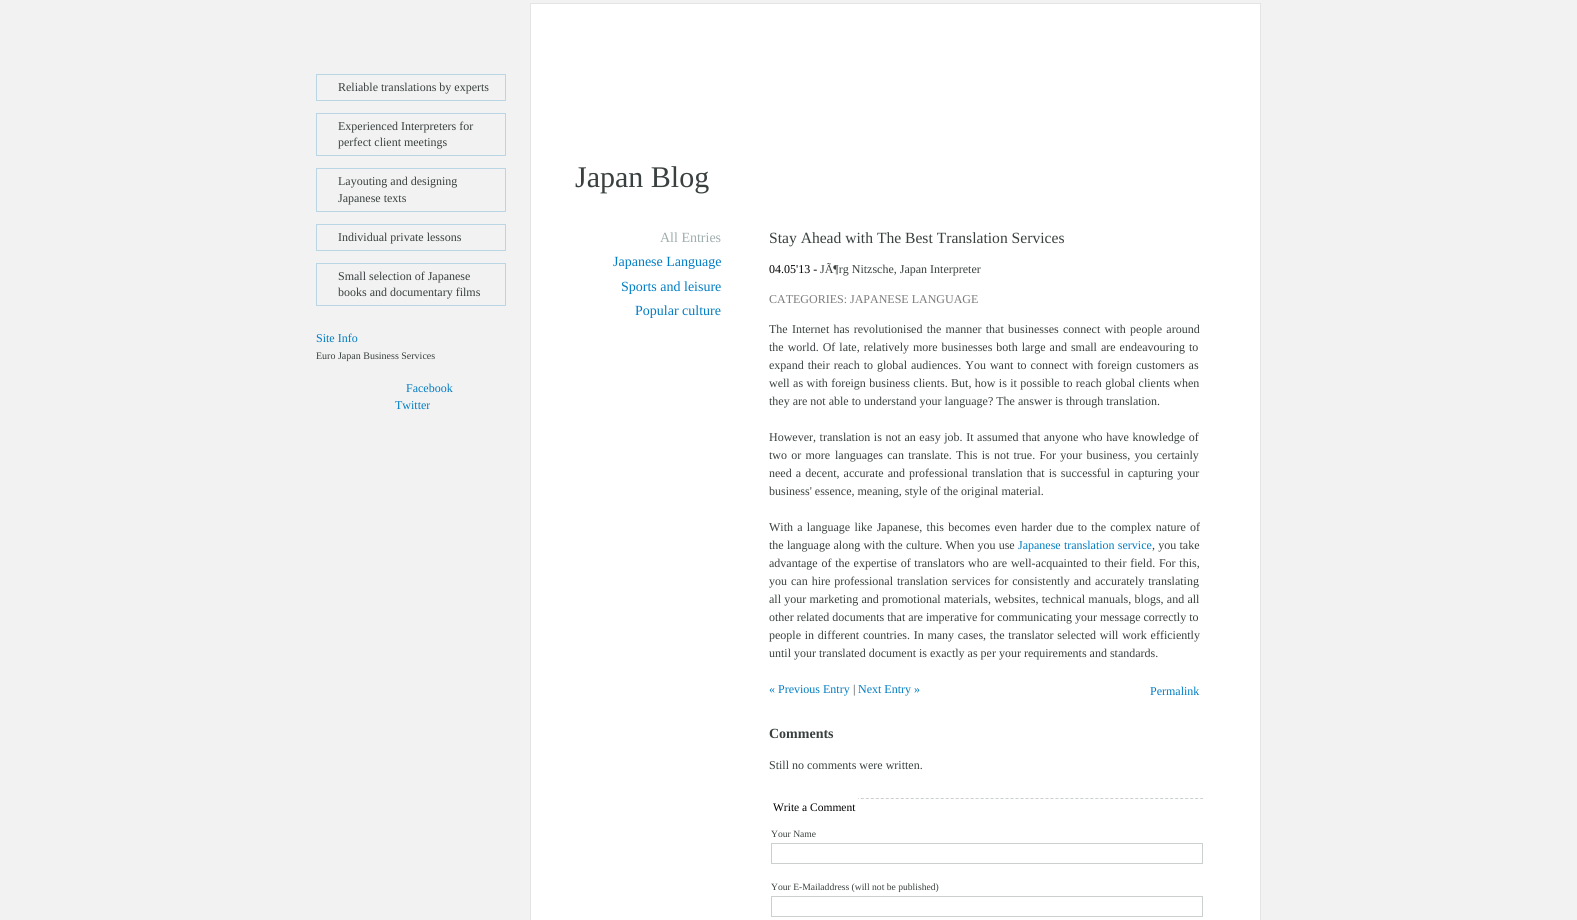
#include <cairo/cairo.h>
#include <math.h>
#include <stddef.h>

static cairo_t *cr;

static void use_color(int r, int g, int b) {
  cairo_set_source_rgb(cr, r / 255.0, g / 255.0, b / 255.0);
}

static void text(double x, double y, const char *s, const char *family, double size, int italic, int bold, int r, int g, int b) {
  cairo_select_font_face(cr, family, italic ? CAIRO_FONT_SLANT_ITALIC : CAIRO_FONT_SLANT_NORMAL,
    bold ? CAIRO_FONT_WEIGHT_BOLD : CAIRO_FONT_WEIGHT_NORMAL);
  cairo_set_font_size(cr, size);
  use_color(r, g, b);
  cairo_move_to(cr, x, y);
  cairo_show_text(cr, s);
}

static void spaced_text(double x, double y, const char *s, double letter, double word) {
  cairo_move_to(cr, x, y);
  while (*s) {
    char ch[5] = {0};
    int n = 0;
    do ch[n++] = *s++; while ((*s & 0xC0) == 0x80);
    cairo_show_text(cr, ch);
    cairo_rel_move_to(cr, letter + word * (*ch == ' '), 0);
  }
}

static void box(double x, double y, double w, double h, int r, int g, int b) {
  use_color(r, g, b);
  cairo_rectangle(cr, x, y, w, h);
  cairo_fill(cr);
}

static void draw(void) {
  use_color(242, 242, 242);
  cairo_paint(cr);
  cairo_rectangle(cr, 316.5, 74.5, 189, 26);
  use_color(186, 214, 229);
  cairo_set_line_width(cr, 1);
  cairo_stroke(cr);
  cairo_rectangle(cr, 316.5, 113.5, 189, 42);
  cairo_stroke(cr);
  cairo_rectangle(cr, 316.5, 168.5, 189, 43);
  cairo_stroke(cr);
  cairo_rectangle(cr, 316.5, 224.5, 189, 26);
  cairo_stroke(cr);
  cairo_rectangle(cr, 316.5, 263.5, 189, 42);
  cairo_stroke(cr);
  use_color(255, 255, 255);
  cairo_rectangle(cr, 530.5, 3.5, 730, 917);
  cairo_fill_preserve(cr);
  use_color(226, 228, 230);
  cairo_stroke(cr);
  cairo_new_path(cr);
  cairo_move_to(cr, 771, 798.5);
  cairo_line_to(cr, 1203, 798.5);
  use_color(204, 207, 207);
  cairo_set_dash(cr, (double[]){3, 1.99}, 2, 0);
  cairo_stroke(cr);
  box(771, 798, 87, 1, 255, 255, 255);
  cairo_rectangle(cr, 771.5, 843.5, 431, 20);
  use_color(204, 207, 207);
  cairo_set_dash(cr, NULL, 0, 0);
  cairo_stroke(cr);
  cairo_rectangle(cr, 771.5, 896.5, 431, 20);
  cairo_stroke(cr);
  text(338, 91, "Reliable translations by experts", "Liberation Serif", 12, 0, 0, 57, 64, 63);
  text(338, 130, "Experienced Interpreters for", "Liberation Serif", 12, 0, 0, 57, 64, 63);
  text(338, 146, "perfect client meetings", "Liberation Serif", 12, 0, 0, 57, 64, 63);
  text(338, 185, "Layouting and designing", "Liberation Serif", 12, 0, 0, 57, 64, 63);
  text(338, 202, "Japanese texts", "Liberation Serif", 12, 0, 0, 57, 64, 63);
  text(338, 241, "Individual private lessons", "Liberation Serif", 12, 0, 0, 57, 64, 63);
  text(338, 280, "Small selection of Japanese", "Liberation Serif", 12, 0, 0, 57, 64, 63);
  text(338, 296, "books and documentary films", "Liberation Serif", 12, 0, 0, 57, 64, 63);
  text(316, 342, "Site Info", "Liberation Serif", 12, 0, 0, 1, 125, 195);
  text(316, 359, "Euro Japan Business Services", "Liberation Serif", 10, 0, 0, 57, 64, 63);
  text(406, 392, "Facebook", "Liberation Serif", 12, 0, 0, 1, 125, 195);
  text(395, 409, "Twitter", "Liberation Serif", 12, 0, 0, 1, 125, 195);
  text(575, 187, "Japan Blog", "Liberation Serif", 30, 0, 0, 57, 64, 63);
  text(660, 242, "All Entries", "Liberation Serif", 14, 0, 0, 160, 173, 173);
  text(613, 266, "Japanese Language", "Liberation Serif", 14, 0, 0, 1, 125, 195);
  text(621, 291, "Sports and leisure", "Liberation Serif", 14, 0, 0, 1, 125, 195);
  text(635, 315, "Popular culture", "Liberation Serif", 14, 0, 0, 1, 125, 195);
  text(769, 243, "Stay Ahead with The Best Translation Services", "Liberation Serif", 15.6, 0, 0, 57, 64, 63);
  text(769, 273, "04.05'13 -", "Liberation Serif", 12, 0, 0, 0, 0, 0);
  text(820, 273, "JÃ¶rg Nitzsche, Japan Interpreter", "Liberation Serif", 12, 0, 0, 57, 64, 63);
  text(769, 303, "CATEGORIES: JAPANESE LANGUAGE", "Liberation Serif", 12, 0, 0, 123, 123, 123);
  use_color(57, 64, 63);
  spaced_text(769, 333, "The Internet has revolutionised the manner that businesses connect with people around", 0, 1.25);
  spaced_text(769, 351, "the world. Of late, relatively more businesses both large and small are endeavouring to", 0, 1);
  spaced_text(769, 369, "expand their reach to global audiences. You want to connect with foreign customers as", 0, 1);
  spaced_text(769, 387, "well as with foreign business clients. But, how is it possible to reach global clients when", 0, 0.4);
  text(769, 405, "they are not able to understand your language? The answer is through translation.", "Liberation Serif", 12, 0, 0, 57, 64, 63);
  spaced_text(769, 441, "However, translation is not an easy job. It assumed that anyone who have knowledge of", 0, 0.6);
  spaced_text(769, 459, "two or more", 0, 1.25);
  spaced_text(835, 459, "languages can translate. This is not true. For your business, you certainly", 0, 1.25);
  spaced_text(769, 477, "need a decent, accurate and professional translation that is successful in capturing your", 0, 1.1);
  text(769, 495, "business' essence, meaning, style of the original material.", "Liberation Serif", 12, 0, 0, 57, 64, 63);
  spaced_text(769, 531, "With a language like Japanese, this becomes even harder due to the complex nature of", 0, 1.25);
  spaced_text(769, 549, "the language along with the culture. When you use", 0, 0.25);
  use_color(1, 125, 195);
  spaced_text(1018, 549, "Japanese translation service", 0, 0.25);
  use_color(57, 64, 63);
  spaced_text(1152, 549, ", you take", 0, 0.25);
  spaced_text(769, 567, "advantage of the expertise of translators who are well-acquainted to their field. For this,", 0, 0.75);
  spaced_text(769, 585, "you can hire professional translation services for consistently and accurately translating", 0, 1);
  spaced_text(769, 603, "all your marketing and promotional materials, websites, technical manuals, blogs, and all", 0, 0.25);
  text(769, 621, "other related documents that are imperative for communicating your message correctly to", "Liberation Serif", 12, 0, 0, 57, 64, 63);
  spaced_text(769, 639, "people in different countries. In many cases, the translator selected will work efficiently", 0, 0.75);
  text(769, 657, "until your translated document is exactly as per your requirements and standards.", "Liberation Serif", 12, 0, 0, 57, 64, 63);
  text(769, 693, "« Previous Entry", "Liberation Serif", 12, 0, 0, 1, 125, 195);
  text(853, 693, "|", "Liberation Serif", 12, 0, 0, 57, 64, 63);
  text(858, 693, "Next Entry »", "Liberation Serif", 12, 0, 0, 1, 125, 195);
  text(1150, 695, "Permalink", "Liberation Serif", 12, 0, 0, 1, 125, 195);
  text(769, 738, "Comments", "Liberation Serif", 14, 0, 1, 57, 64, 63);
  text(769, 769, "Still no comments were written.", "Liberation Serif", 12, 0, 0, 57, 64, 63);
  text(773, 811, "Write a Comment", "Liberation Serif", 11.5, 0, 0, 0, 0, 0);
  text(771, 837, "Your Name", "Liberation Serif", 9.6, 0, 0, 57, 64, 63);
  text(771, 890, "Your E-Mailaddress (will not be published)", "Liberation Serif", 9.6, 0, 0, 57, 64, 63);
}

int main(void) {
  cairo_surface_t *surface = cairo_image_surface_create(CAIRO_FORMAT_RGB24, 1577, 920);
  cr = cairo_create(surface);
  cairo_font_options_t *options = cairo_font_options_create();
  cairo_font_options_set_hint_metrics(options, CAIRO_HINT_METRICS_OFF);
  cairo_font_options_set_hint_style(options, CAIRO_HINT_STYLE_NONE);
  cairo_set_font_options(cr, options);
  cairo_set_miter_limit(cr, 4);
  draw();
  cairo_surface_write_to_png(surface, "out.png");
  cairo_font_options_destroy(options);
  cairo_destroy(cr);
  cairo_surface_destroy(surface);
  return 0;
}
